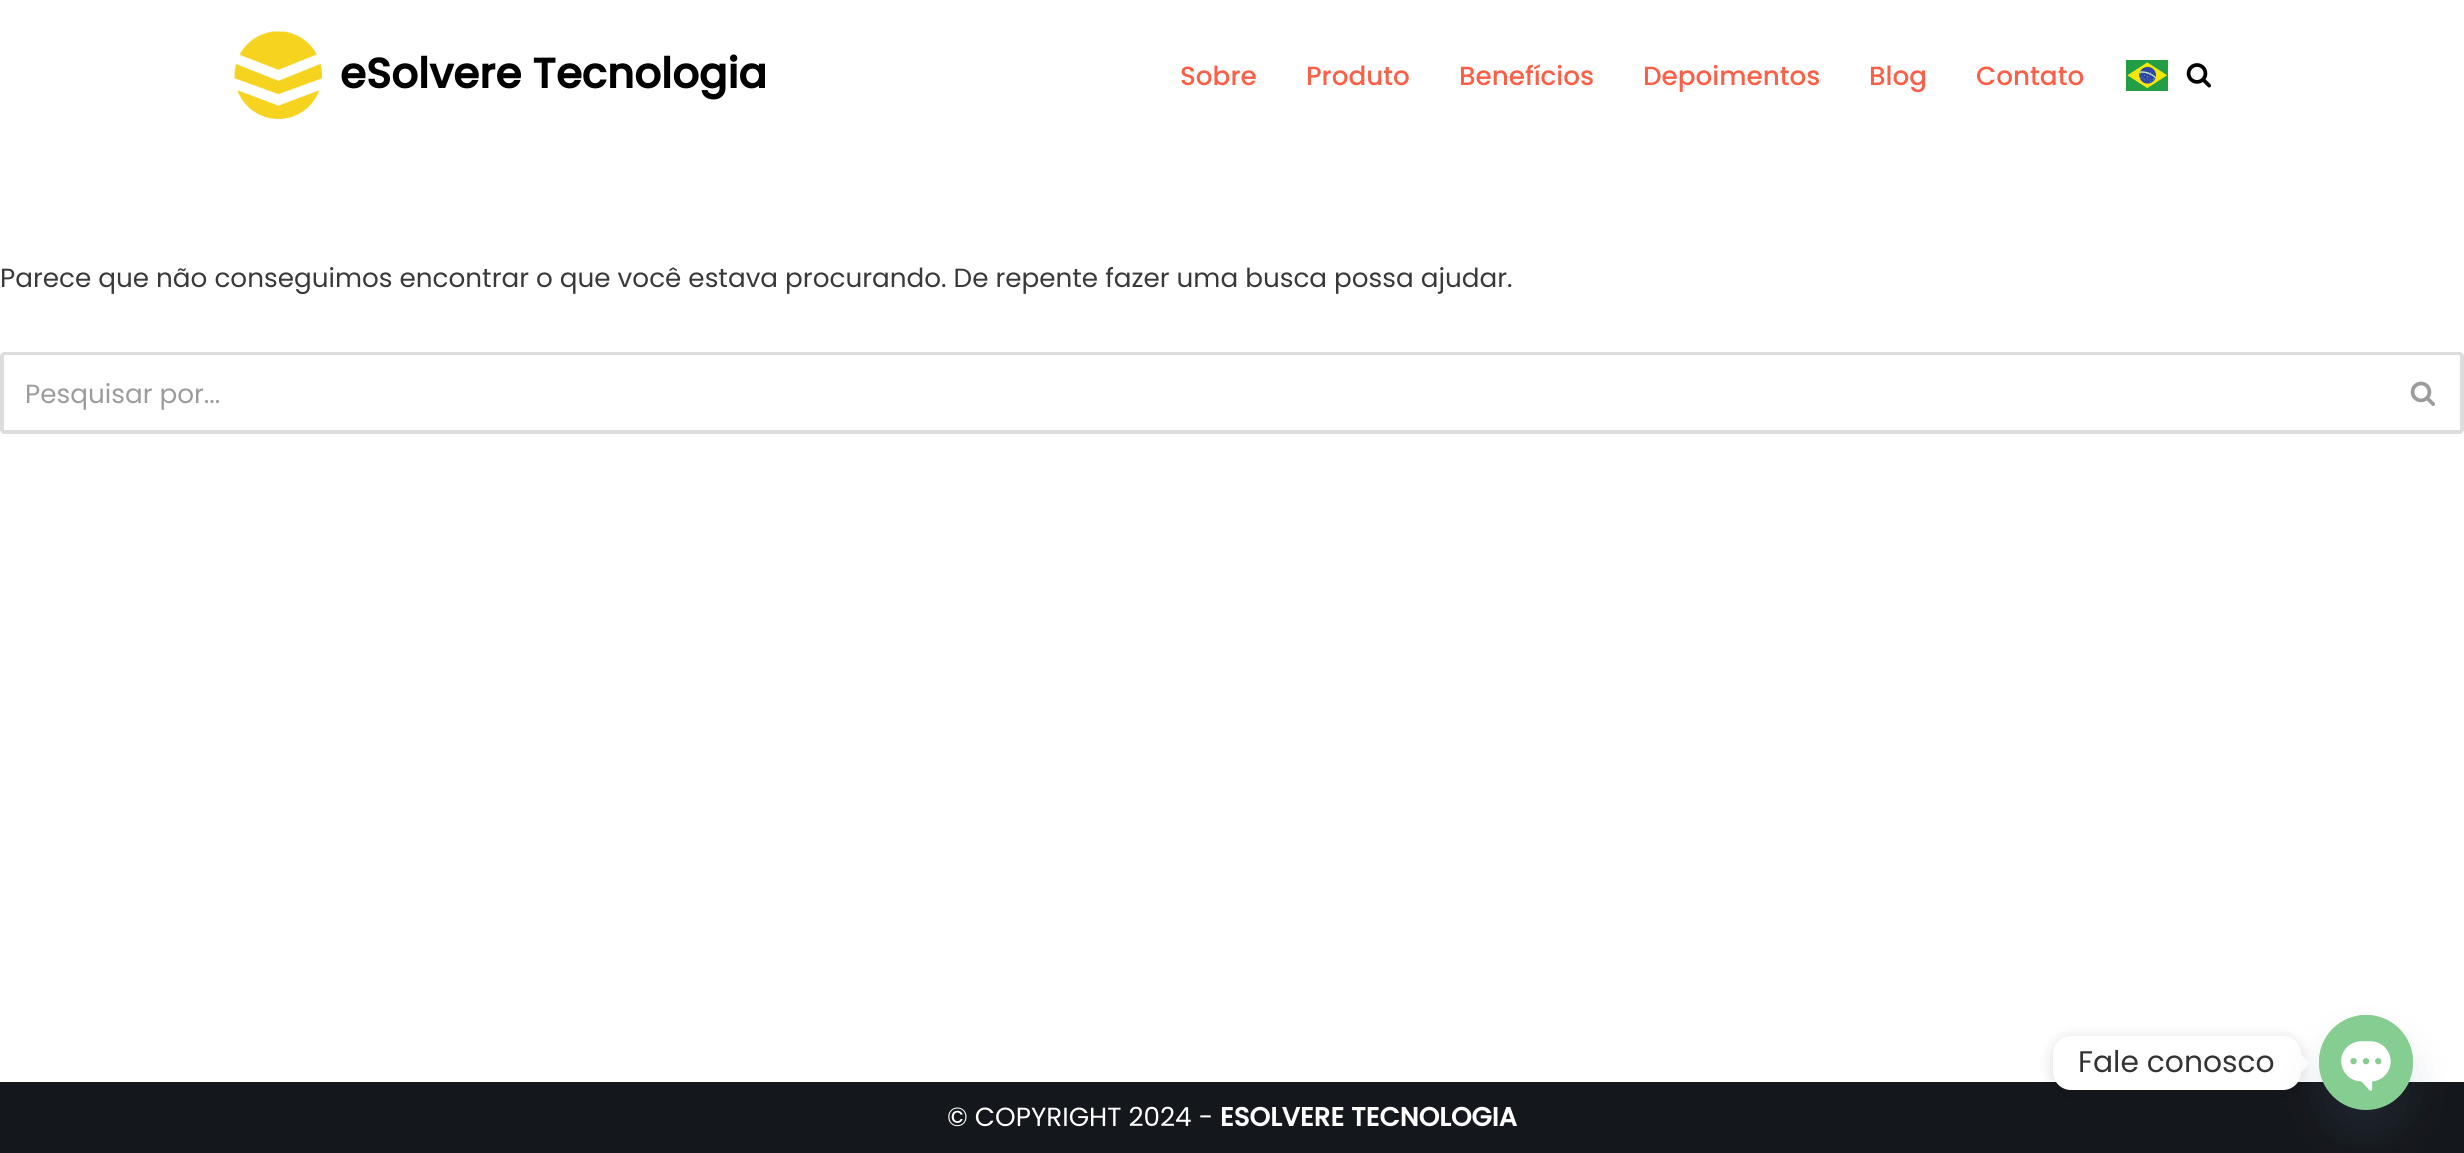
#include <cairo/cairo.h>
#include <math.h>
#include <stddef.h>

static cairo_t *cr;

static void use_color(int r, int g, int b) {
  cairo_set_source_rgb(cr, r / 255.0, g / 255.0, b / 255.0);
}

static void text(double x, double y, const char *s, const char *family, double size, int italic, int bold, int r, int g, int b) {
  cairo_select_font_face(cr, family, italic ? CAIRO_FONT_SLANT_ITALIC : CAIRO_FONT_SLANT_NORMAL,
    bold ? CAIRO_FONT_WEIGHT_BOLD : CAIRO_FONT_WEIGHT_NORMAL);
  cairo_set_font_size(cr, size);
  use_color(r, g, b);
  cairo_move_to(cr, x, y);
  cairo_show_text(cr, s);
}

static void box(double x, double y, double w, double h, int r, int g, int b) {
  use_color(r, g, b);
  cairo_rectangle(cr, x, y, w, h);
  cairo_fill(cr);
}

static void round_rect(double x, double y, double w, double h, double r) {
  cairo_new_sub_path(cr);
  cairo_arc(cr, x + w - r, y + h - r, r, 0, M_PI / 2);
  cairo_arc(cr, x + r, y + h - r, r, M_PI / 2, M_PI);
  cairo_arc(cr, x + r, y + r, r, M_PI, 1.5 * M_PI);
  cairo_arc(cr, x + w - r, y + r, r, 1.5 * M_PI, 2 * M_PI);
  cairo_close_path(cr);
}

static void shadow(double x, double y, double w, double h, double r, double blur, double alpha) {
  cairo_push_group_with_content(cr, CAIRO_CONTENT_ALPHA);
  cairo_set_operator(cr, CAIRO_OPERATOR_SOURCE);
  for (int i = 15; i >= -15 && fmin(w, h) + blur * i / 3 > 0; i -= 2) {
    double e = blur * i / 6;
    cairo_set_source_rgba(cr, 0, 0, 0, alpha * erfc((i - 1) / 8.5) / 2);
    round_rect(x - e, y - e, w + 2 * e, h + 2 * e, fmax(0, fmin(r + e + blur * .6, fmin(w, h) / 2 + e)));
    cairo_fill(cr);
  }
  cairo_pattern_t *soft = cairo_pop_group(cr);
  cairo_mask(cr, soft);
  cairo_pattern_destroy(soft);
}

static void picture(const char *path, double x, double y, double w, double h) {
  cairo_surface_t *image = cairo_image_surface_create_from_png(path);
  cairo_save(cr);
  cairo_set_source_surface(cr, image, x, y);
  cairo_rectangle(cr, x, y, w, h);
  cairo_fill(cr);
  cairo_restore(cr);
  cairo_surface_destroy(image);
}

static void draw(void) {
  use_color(255, 255, 255);
  cairo_paint(cr);
  picture("img_01.png", 234, 31, 88, 88);
  picture("img_02.png", 2126, 60, 42, 31);
  picture("img_03.png", 2186, 63, 25, 25);
  use_color(221, 221, 221);
  cairo_set_fill_rule(cr, CAIRO_FILL_RULE_EVEN_ODD);
  cairo_new_path(cr);
  cairo_move_to(cr, 5, 352);
  cairo_line_to(cr, 2385, 352);
  cairo_line_to(cr, 2385, 434);
  cairo_line_to(cr, 5, 434);
  cairo_curve_to(cr, 2, 434, 0, 432, 0, 429);
  cairo_line_to(cr, 0, 357);
  cairo_curve_to(cr, 0, 354, 2, 352, 5, 352);
  cairo_close_path(cr);
  cairo_move_to(cr, 5, 355);
  cairo_line_to(cr, 2385, 355);
  cairo_line_to(cr, 2385, 430);
  cairo_line_to(cr, 5, 430);
  cairo_curve_to(cr, 4, 430, 4, 430, 4, 429);
  cairo_line_to(cr, 4, 357);
  cairo_curve_to(cr, 4, 356, 4, 355, 5, 355);
  cairo_close_path(cr);
  cairo_fill(cr);
  cairo_new_path(cr);
  cairo_move_to(cr, 2385, 352);
  cairo_line_to(cr, 2459, 352);
  cairo_curve_to(cr, 2462, 352, 2464, 354, 2464, 357);
  cairo_line_to(cr, 2464, 429);
  cairo_curve_to(cr, 2464, 432, 2462, 434, 2459, 434);
  cairo_line_to(cr, 2385, 434);
  cairo_close_path(cr);
  cairo_move_to(cr, 2385, 355);
  cairo_line_to(cr, 2459, 355);
  cairo_curve_to(cr, 2460, 355, 2460, 356, 2460, 357);
  cairo_line_to(cr, 2460, 429);
  cairo_curve_to(cr, 2460, 430, 2460, 430, 2459, 430);
  cairo_line_to(cr, 2385, 430);
  cairo_close_path(cr);
  cairo_fill(cr);
  picture("img_04.png", 2410, 381, 25, 25);
  box(0, 1082, 2464, 71, 20, 23, 28);
  use_color(0, 0, 0);
  shadow(2053, 1038, 248, 54, 18, 7, 0.15);
  use_color(255, 255, 255);
  round_rect(2053, 1036, 248, 54, 18);
  cairo_fill(cr);
  cairo_set_fill_rule(cr, CAIRO_FILL_RULE_WINDING);
  cairo_new_path(cr);
  cairo_move_to(cr, 2301, 1072);
  cairo_line_to(cr, 2301, 1054.5);
  cairo_line_to(cr, 2310, 1063);
  cairo_close_path(cr);
  cairo_fill(cr);
  use_color(73, 104, 126);
  shadow(2319, 1043, 94, 95, 47, 21, 0.16);
  use_color(134, 205, 145);
  round_rect(2319, 1015, 94, 95, 47);
  cairo_fill(cr);
  picture("img_05.png", 2319, 1015, 94, 76);
  text(340, 88, "eSolvere Tecnologia", "Poppins", 42, 0, 1, 0, 0, 0);
  text(1180, 85, "Sobre", "Poppins Medium", 26.25, 0, 0, 252, 95, 69);
  text(1306, 85, "Produto", "Poppins Medium", 26.25, 0, 0, 252, 95, 69);
  text(1459, 85, "Benefícios", "Poppins Medium", 26.25, 0, 0, 252, 95, 69);
  text(1643, 85, "Depoimentos", "Poppins Medium", 26.25, 0, 0, 252, 95, 69);
  text(1869, 85, "Blog", "Poppins Medium", 26.25, 0, 0, 252, 95, 69);
  text(1976, 85, "Contato", "Poppins Medium", 26.25, 0, 0, 252, 95, 69);
  text(0, 287, "Parece que não conseguimos encontrar o que você estava procurando. De repente fazer uma busca possa ajudar.", "Poppins", 26.25, 0, 0, 57, 57, 57);
  text(25, 403, "Pesquisar por...", "Poppins", 26.25, 0, 0, 156, 156, 156);
  text(947, 1126, "© COPYRIGHT 2024 -", "Poppins", 26.25, 0, 0, 255, 255, 255);
  text(1220, 1126, "ESOLVERE TECNOLOGIA", "Poppins", 26.25, 0, 1, 255, 255, 255);
  text(2078, 1072, "Fale conosco", "Poppins", 29.75, 0, 0, 51, 51, 51);
}

int main(void) {
  cairo_surface_t *surface = cairo_image_surface_create(CAIRO_FORMAT_RGB24, 2464, 1153);
  cr = cairo_create(surface);
  cairo_font_options_t *options = cairo_font_options_create();
  cairo_font_options_set_hint_metrics(options, CAIRO_HINT_METRICS_OFF);
  cairo_font_options_set_hint_style(options, CAIRO_HINT_STYLE_NONE);
  cairo_set_font_options(cr, options);
  cairo_set_miter_limit(cr, 4);
  draw();
  cairo_surface_write_to_png(surface, "out.png");
  cairo_font_options_destroy(options);
  cairo_destroy(cr);
  cairo_surface_destroy(surface);
  return 0;
}
